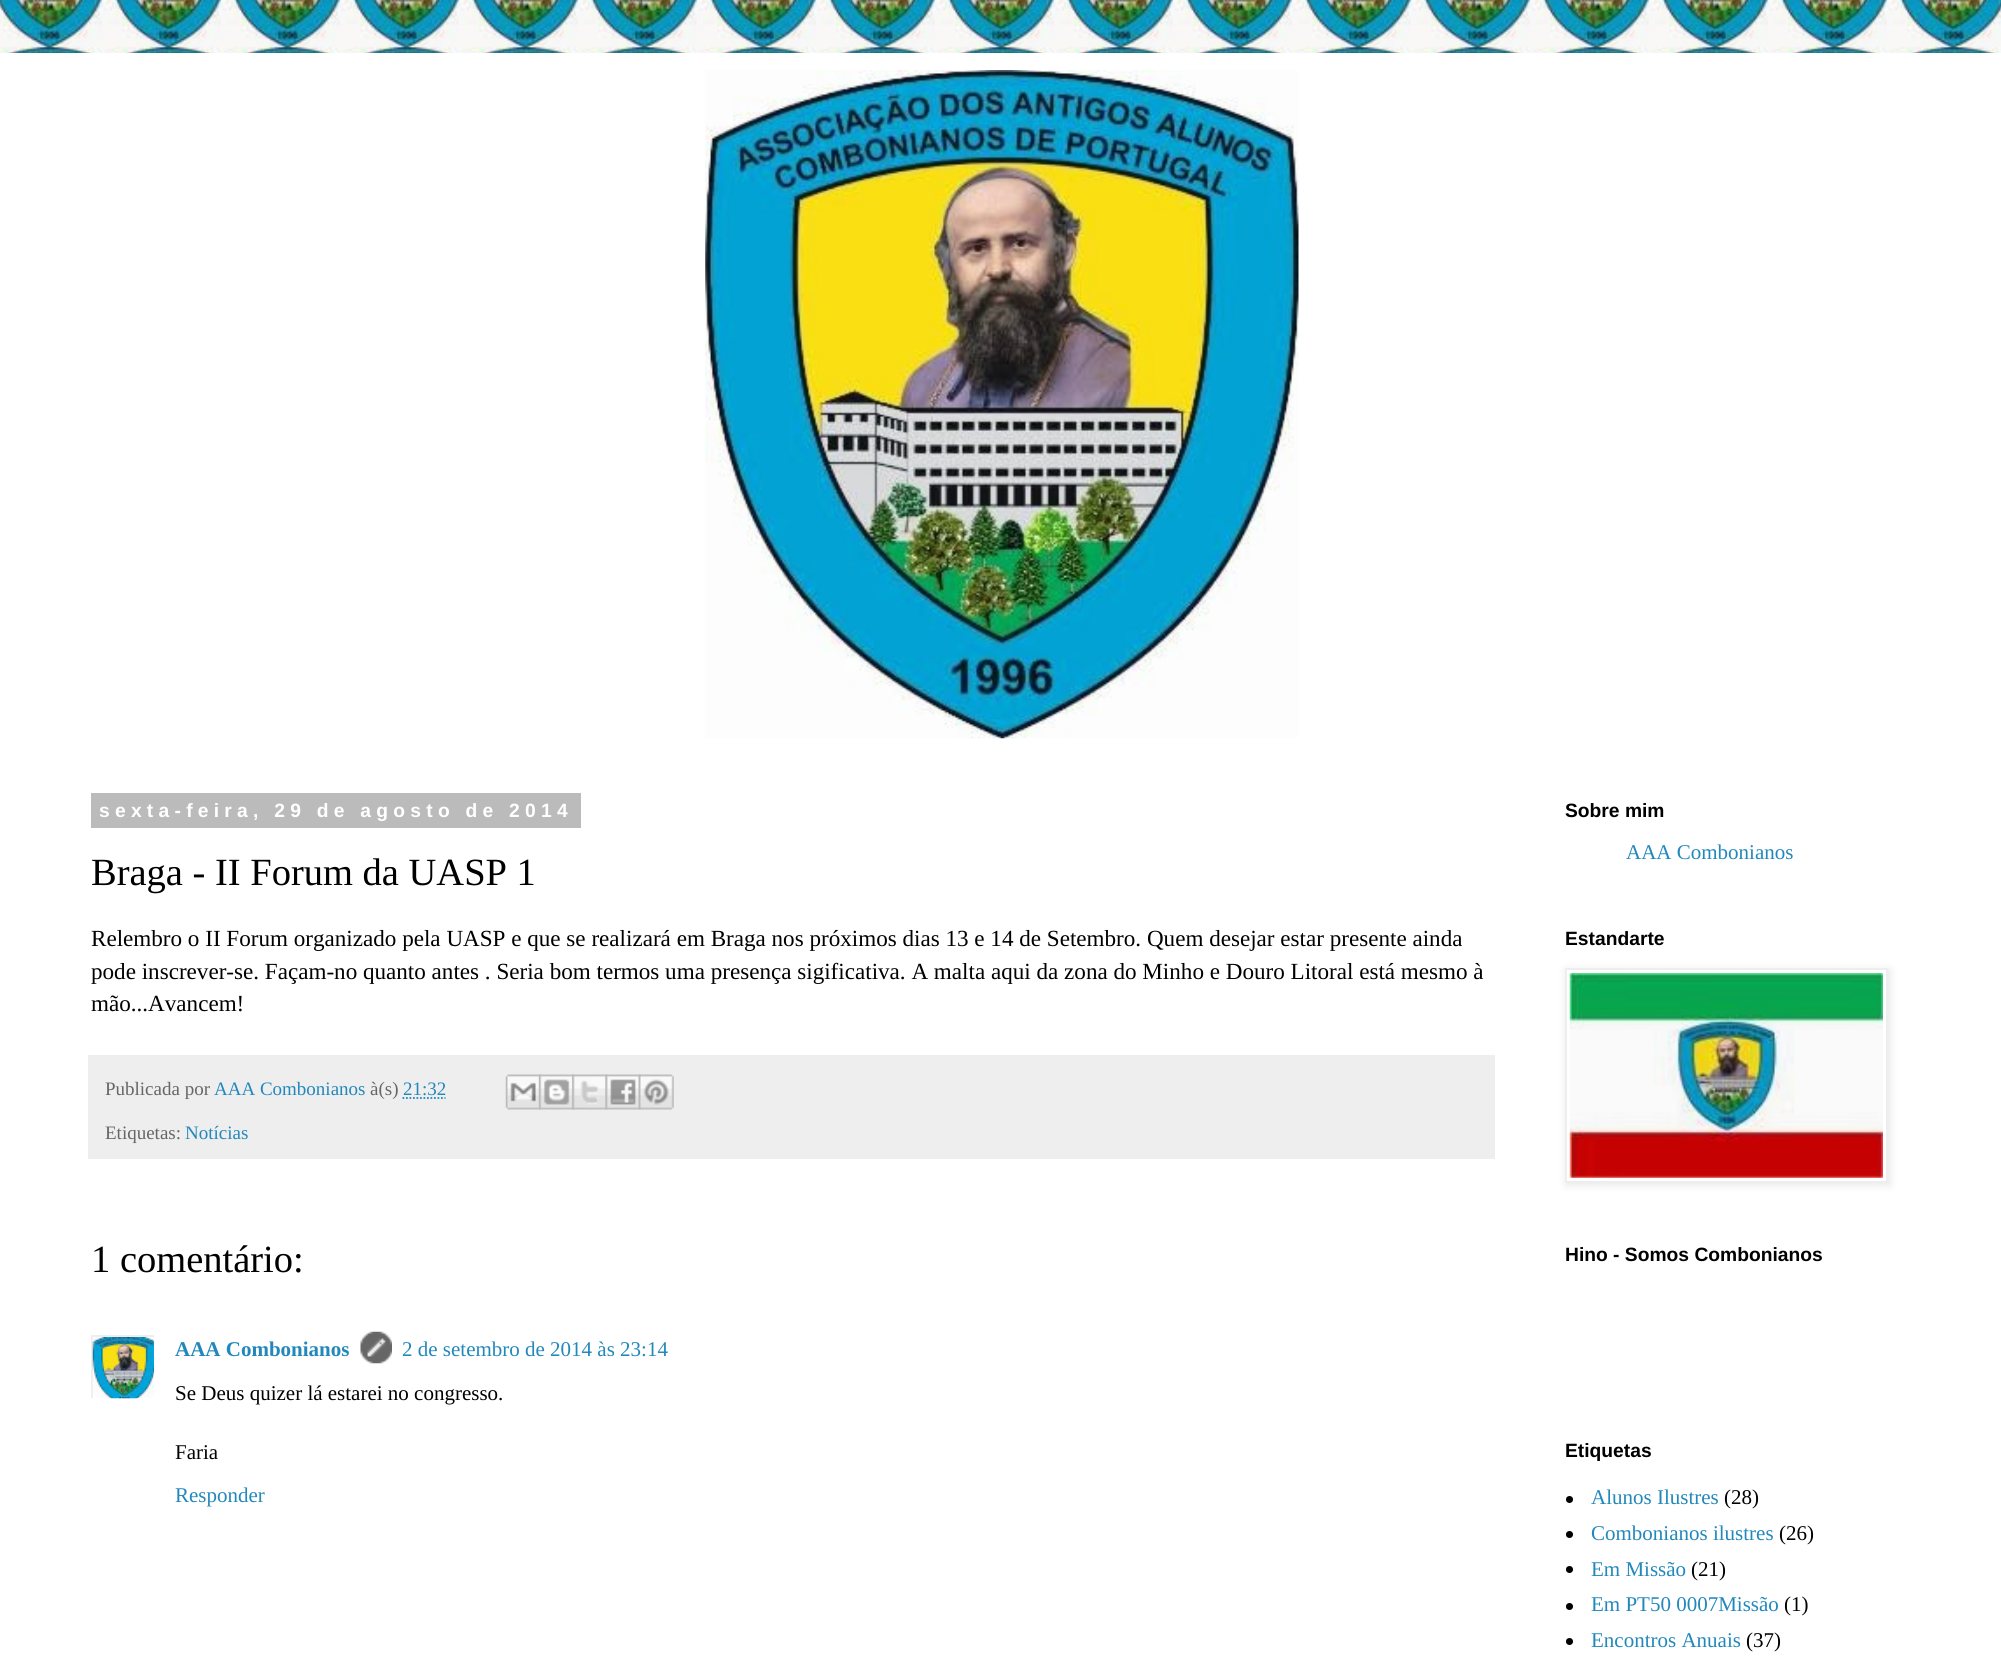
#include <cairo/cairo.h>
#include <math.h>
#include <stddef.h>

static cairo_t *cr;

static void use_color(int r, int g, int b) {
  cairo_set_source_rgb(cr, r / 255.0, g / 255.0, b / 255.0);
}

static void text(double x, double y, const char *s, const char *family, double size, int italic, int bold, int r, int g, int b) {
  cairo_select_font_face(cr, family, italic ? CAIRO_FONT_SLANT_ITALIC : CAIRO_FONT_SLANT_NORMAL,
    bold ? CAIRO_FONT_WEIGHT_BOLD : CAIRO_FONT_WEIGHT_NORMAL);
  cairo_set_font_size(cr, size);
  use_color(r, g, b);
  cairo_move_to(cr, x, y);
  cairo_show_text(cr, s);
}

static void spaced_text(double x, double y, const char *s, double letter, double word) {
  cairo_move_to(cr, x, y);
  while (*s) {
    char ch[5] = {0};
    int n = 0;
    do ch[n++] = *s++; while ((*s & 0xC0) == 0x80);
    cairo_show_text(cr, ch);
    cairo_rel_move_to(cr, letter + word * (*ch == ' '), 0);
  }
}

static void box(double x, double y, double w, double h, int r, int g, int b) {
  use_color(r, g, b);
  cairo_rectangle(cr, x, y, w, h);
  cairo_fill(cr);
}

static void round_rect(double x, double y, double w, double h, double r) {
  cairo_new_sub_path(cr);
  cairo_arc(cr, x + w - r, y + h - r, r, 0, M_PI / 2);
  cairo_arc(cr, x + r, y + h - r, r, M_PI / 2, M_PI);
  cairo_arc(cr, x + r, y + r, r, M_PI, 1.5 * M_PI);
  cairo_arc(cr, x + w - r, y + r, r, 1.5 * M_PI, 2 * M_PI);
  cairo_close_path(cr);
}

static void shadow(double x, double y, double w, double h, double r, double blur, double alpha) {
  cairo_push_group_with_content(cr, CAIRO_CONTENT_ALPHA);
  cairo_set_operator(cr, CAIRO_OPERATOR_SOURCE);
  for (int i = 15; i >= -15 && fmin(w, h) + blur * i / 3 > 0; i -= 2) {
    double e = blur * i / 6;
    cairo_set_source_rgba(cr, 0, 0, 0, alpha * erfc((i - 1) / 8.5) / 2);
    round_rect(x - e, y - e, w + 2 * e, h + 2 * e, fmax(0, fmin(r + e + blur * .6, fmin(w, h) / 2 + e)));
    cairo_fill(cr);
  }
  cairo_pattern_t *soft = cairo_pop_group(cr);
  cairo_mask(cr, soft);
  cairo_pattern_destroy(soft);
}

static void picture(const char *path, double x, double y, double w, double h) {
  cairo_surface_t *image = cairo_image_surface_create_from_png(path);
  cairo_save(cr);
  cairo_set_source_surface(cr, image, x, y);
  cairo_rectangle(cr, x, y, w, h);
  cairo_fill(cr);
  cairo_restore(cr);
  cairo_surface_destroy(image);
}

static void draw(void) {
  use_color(255, 255, 255);
  cairo_paint(cr);
  picture("img_01.png", 0, 0, 2001, 53);
  picture("img_02.png", 705, 70, 594, 669);
  box(91, 793, 490, 35, 187, 187, 187);
  box(88, 1055, 1407, 104, 238, 238, 238);
  cairo_new_path(cr);
  cairo_move_to(cr, 402.5, 1098);
  cairo_line_to(cr, 445.5, 1098);
  use_color(34, 136, 187);
  cairo_set_line_width(cr, 1.8);
  cairo_set_dash(cr, (double[]){1.75, 1.75}, 2, 0);
  cairo_stroke(cr);
  picture("img_03.png", 505, 1074, 36, 36);
  picture("img_04.png", 539, 1074, 35, 36);
  picture("img_05.png", 572, 1074, 36, 36);
  picture("img_06.png", 605, 1074, 36, 36);
  picture("img_07.png", 638, 1074, 36, 36);
  cairo_save(cr);
  cairo_rectangle(cr, 91, 1335, 63, 63);
  cairo_clip(cr);
  cairo_rectangle(cr, 92, 1336, 65, 65);
  use_color(238, 238, 238);
  cairo_set_line_width(cr, 2);
  cairo_set_dash(cr, NULL, 0, 0);
  cairo_stroke(cr);
  cairo_restore(cr);
  picture("img_08.png", 92, 1337, 62, 62);
  picture("img_09.png", 360, 1331, 32, 33);
  cairo_save(cr);
  cairo_set_fill_rule(cr, CAIRO_FILL_RULE_EVEN_ODD);
  cairo_new_path(cr);
  cairo_move_to(cr, 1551, 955);
  cairo_line_to(cr, 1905, 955);
  cairo_line_to(cr, 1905, 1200);
  cairo_line_to(cr, 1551, 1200);
  cairo_close_path(cr);
  cairo_move_to(cr, 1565, 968);
  cairo_line_to(cr, 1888, 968);
  cairo_line_to(cr, 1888, 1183);
  cairo_line_to(cr, 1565, 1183);
  cairo_close_path(cr);
  cairo_clip(cr);
  use_color(0, 0, 0);
  shadow(1566, 970, 324, 215, 0, 4.5, 0.1);
  cairo_restore(cr);
  cairo_rectangle(cr, 1566, 969, 321, 213);
  use_color(238, 238, 238);
  cairo_set_line_width(cr, 2);
  cairo_set_dash(cr, NULL, 0, 0);
  cairo_stroke(cr);
  picture("img_10.png", 1569, 973, 314, 205);
  use_color(0, 0, 0);
  cairo_arc(cr, 1569.5, 1499.5, 3.5, 0, 2 * M_PI);
  cairo_fill(cr);
  cairo_arc(cr, 1569.5, 1534.5, 3.5, 0, 2 * M_PI);
  cairo_fill(cr);
  cairo_arc(cr, 1569.5, 1569.5, 3.5, 0, 2 * M_PI);
  cairo_fill(cr);
  cairo_arc(cr, 1569.5, 1606.5, 3.5, 0, 2 * M_PI);
  cairo_fill(cr);
  cairo_arc(cr, 1569.5, 1641.5, 3.5, 0, 2 * M_PI);
  cairo_fill(cr);
  cairo_select_font_face(cr, "Liberation Sans", CAIRO_FONT_SLANT_NORMAL, CAIRO_FONT_WEIGHT_BOLD);
  cairo_set_font_size(cr, 19.25);
  use_color(255, 255, 255);
  spaced_text(99, 817, "sexta-feira, 29 de agosto de 2014", 5.25, 0);
  text(91, 885, "Braga - II Forum da UASP 1", "Liberation Serif", 38.5, 0, 0, 0, 0, 0);
  text(91, 946, "Relembro o II Forum organizado pela UASP e que se realizará em Braga nos próximos dias 13 e 14 de Setembro. Quem desejar estar presente ainda", "Liberation Serif", 23.1, 0, 0, 0, 0, 0);
  text(91, 979, "pode inscrever-se. Façam-no quanto antes . Seria bom termos uma presença sigificativa. A malta aqui da zona do Minho e Douro Litoral está mesmo à", "Liberation Serif", 23.1, 0, 0, 0, 0, 0);
  text(91, 1011, "mão...Avancem!", "Liberation Serif", 23.1, 0, 0, 0, 0, 0);
  text(105, 1095, "Publicada por", "Liberation Serif", 19, 0, 0, 102, 102, 102);
  text(214, 1095, "AAA Combonianos", "Liberation Serif", 19, 0, 0, 34, 136, 187);
  text(370, 1095, "à(s)", "Liberation Serif", 19, 0, 0, 102, 102, 102);
  text(403, 1095, "21:32", "Liberation Serif", 19, 0, 0, 34, 136, 187);
  text(105, 1139, "Etiquetas:", "Liberation Serif", 19, 0, 0, 102, 102, 102);
  text(185, 1139, "Notícias", "Liberation Serif", 19, 0, 0, 34, 136, 187);
  text(91, 1272, "1 comentário:", "Liberation Serif", 38.5, 0, 0, 0, 0, 0);
  text(175, 1356, "AAA Combonianos", "Liberation Serif", 21, 0, 1, 34, 136, 187);
  text(402, 1356, "2 de setembro de 2014 às 23:14", "Liberation Serif", 21, 0, 0, 34, 136, 187);
  text(175, 1400, "Se Deus quizer lá estarei no congresso.", "Liberation Serif", 21, 0, 0, 0, 0, 0);
  text(175, 1459, "Faria", "Liberation Serif", 21, 0, 0, 0, 0, 0);
  text(175, 1502, "Responder", "Liberation Serif", 21, 0, 0, 34, 136, 187);
  text(1565, 817, "Sobre mim", "Liberation Sans", 19.25, 0, 1, 0, 0, 0);
  text(1626, 859, "AAA Combonianos", "Liberation Serif", 21, 0, 0, 34, 136, 187);
  text(1565, 945, "Estandarte", "Liberation Sans", 19.25, 0, 1, 0, 0, 0);
  text(1565, 1261, "Hino - Somos Combonianos", "Liberation Sans", 19.25, 0, 1, 0, 0, 0);
  text(1565, 1457, "Etiquetas", "Liberation Sans", 19.25, 0, 1, 0, 0, 0);
  text(1591, 1504, "Alunos Ilustres", "Liberation Serif", 21, 0, 0, 34, 136, 187);
  text(1724, 1504, "(28)", "Liberation Serif", 21, 0, 0, 0, 0, 0);
  text(1591, 1540, "Combonianos ilustres", "Liberation Serif", 21, 0, 0, 34, 136, 187);
  text(1779, 1540, "(26)", "Liberation Serif", 21, 0, 0, 0, 0, 0);
  text(1591, 1576, "Em Missão", "Liberation Serif", 21, 0, 0, 34, 136, 187);
  text(1691, 1576, "(21)", "Liberation Serif", 21, 0, 0, 0, 0, 0);
  text(1591, 1611, "Em PT50 0007Missão", "Liberation Serif", 21, 0, 0, 34, 136, 187);
  text(1784, 1611, "(1)", "Liberation Serif", 21, 0, 0, 0, 0, 0);
  text(1591, 1647, "Encontros Anuais", "Liberation Serif", 21, 0, 0, 34, 136, 187);
  text(1746, 1647, "(37)", "Liberation Serif", 21, 0, 0, 0, 0, 0);
}

int main(void) {
  cairo_surface_t *surface = cairo_image_surface_create(CAIRO_FORMAT_RGB24, 2001, 1664);
  cr = cairo_create(surface);
  cairo_font_options_t *options = cairo_font_options_create();
  cairo_font_options_set_hint_metrics(options, CAIRO_HINT_METRICS_OFF);
  cairo_font_options_set_hint_style(options, CAIRO_HINT_STYLE_NONE);
  cairo_set_font_options(cr, options);
  cairo_set_miter_limit(cr, 4);
  draw();
  cairo_surface_write_to_png(surface, "out.png");
  cairo_font_options_destroy(options);
  cairo_destroy(cr);
  cairo_surface_destroy(surface);
  return 0;
}
